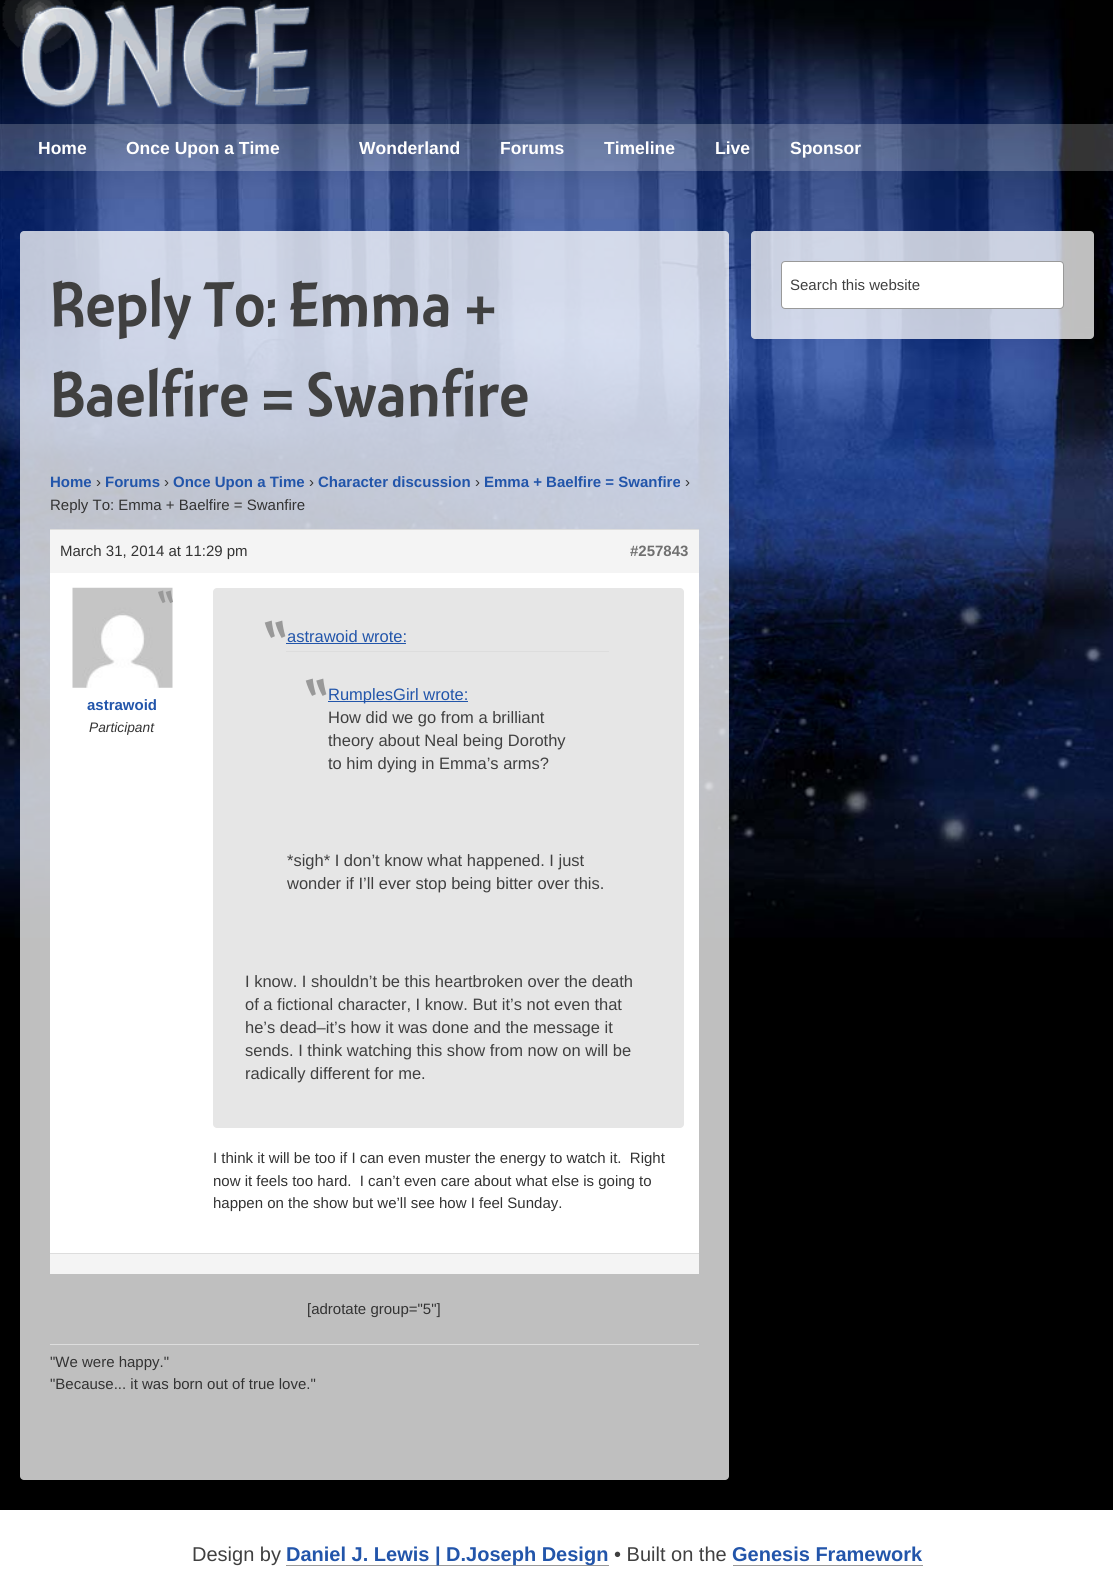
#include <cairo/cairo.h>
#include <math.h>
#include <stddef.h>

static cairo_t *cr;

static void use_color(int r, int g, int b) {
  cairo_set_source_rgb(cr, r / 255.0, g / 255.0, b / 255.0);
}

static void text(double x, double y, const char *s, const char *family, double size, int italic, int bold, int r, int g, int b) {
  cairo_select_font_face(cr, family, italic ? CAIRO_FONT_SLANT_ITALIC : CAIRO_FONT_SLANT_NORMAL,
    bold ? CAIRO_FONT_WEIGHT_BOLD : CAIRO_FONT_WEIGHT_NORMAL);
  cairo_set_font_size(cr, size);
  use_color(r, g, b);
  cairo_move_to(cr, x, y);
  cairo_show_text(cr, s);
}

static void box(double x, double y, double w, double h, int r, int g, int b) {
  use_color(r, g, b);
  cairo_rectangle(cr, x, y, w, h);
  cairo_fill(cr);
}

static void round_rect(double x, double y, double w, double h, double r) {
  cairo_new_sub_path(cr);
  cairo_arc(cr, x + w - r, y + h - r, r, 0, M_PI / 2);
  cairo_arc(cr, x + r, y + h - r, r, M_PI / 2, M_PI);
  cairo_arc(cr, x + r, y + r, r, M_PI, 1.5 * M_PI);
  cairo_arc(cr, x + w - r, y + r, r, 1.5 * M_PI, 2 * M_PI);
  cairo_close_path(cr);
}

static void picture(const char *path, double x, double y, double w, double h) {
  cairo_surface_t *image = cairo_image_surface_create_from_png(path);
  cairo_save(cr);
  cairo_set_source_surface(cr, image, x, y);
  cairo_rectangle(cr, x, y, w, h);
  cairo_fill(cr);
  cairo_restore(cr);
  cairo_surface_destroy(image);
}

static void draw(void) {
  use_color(0, 0, 0);
  cairo_paint(cr);
  picture("img_01.png", 0, 0, 1113, 938);
  picture("img_02.png", 2, 0, 309, 109);
  cairo_set_source_rgba(cr, 1, 1, 1, 0.2);
  cairo_rectangle(cr, 0, 124, 1113, 47);
  cairo_fill(cr);
  cairo_set_source_rgba(cr, 1, 1, 1, 0.75);
  round_rect(20, 231, 709, 1249, 4);
  cairo_fill(cr);
  box(50, 530, 649, 43, 244, 244, 244);
  box(50, 529, 649, 1, 221, 221, 221);
  box(50, 573, 649, 680, 255, 255, 255);
  picture("img_03.png", 72, 587, 101, 101);
  use_color(230, 230, 230);
  round_rect(213, 588, 471, 540, 4);
  cairo_fill(cr);
  box(286, 651, 323, 1, 221, 221, 221);
  box(286, 643, 120, 1, 34, 85, 170);
  box(328, 701, 140, 1, 34, 85, 170);
  box(50, 1254, 649, 20, 244, 244, 244);
  box(50, 1253, 649, 1, 221, 221, 221);
  box(50, 1344, 649, 1, 221, 221, 221);
  cairo_set_source_rgba(cr, 1, 1, 1, 0.75);
  round_rect(751, 231, 343, 108, 4);
  cairo_fill(cr);
  use_color(255, 255, 255);
  round_rect(781.5, 261.5, 282, 47, 3.5);
  cairo_fill_preserve(cr);
  use_color(153, 153, 153);
  cairo_set_line_width(cr, 1);
  cairo_stroke(cr);
  box(0, 1510, 1113, 79, 255, 255, 255);
  box(286, 1565, 323, 1, 153, 153, 153);
  box(733, 1565, 190, 1, 153, 153, 153);
  text(38, 154, "Home", "Liberation Sans", 17.5, 0, 1, 255, 255, 255);
  text(126, 154, "Once Upon a Time", "Liberation Sans", 17.5, 0, 1, 255, 255, 255);
  text(359, 154, "Wonderland", "Liberation Sans", 17.5, 0, 1, 255, 255, 255);
  text(500, 154, "Forums", "Liberation Sans", 17.5, 0, 1, 255, 255, 255);
  text(604, 154, "Timeline", "Liberation Sans", 17.5, 0, 1, 255, 255, 255);
  text(715, 154, "Live", "Liberation Sans", 17.5, 0, 1, 255, 255, 255);
  text(790, 154, "Sponsor", "Liberation Sans", 17.5, 0, 1, 255, 255, 255);
  text(50, 326, "Reply To: Emma +", "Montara", 66.25, 0, 0, 64, 64, 64);
  text(50, 416, "Baelfire = Swanfire", "Montara", 66.25, 0, 0, 64, 64, 64);
  text(50, 487, "Home", "Liberation Sans", 15, 0, 1, 34, 85, 170);
  text(96, 487, "›", "Liberation Sans", 15, 0, 0, 51, 51, 51);
  text(105, 487, "Forums", "Liberation Sans", 15, 0, 1, 34, 85, 170);
  text(164, 487, "›", "Liberation Sans", 15, 0, 0, 51, 51, 51);
  text(173, 487, "Once Upon a Time", "Liberation Sans", 15, 0, 1, 34, 85, 170);
  text(309, 487, "›", "Liberation Sans", 15, 0, 0, 51, 51, 51);
  text(318, 487, "Character discussion", "Liberation Sans", 15, 0, 1, 34, 85, 170);
  text(475, 487, "›", "Liberation Sans", 15, 0, 0, 51, 51, 51);
  text(484, 487, "Emma + Baelfire = Swanfire", "Liberation Sans", 15, 0, 1, 34, 85, 170);
  text(685, 487, "›", "Liberation Sans", 15, 0, 0, 51, 51, 51);
  text(50, 510, "Reply To: Emma + Baelfire = Swanfire", "Liberation Sans", 15, 0, 0, 51, 51, 51);
  text(60, 556, "March 31, 2014 at 11:29 pm", "Liberation Sans", 15, 0, 0, 51, 51, 51);
  text(630, 556, "#257843", "Liberation Sans", 15, 0, 1, 112, 112, 112);
  text(87, 710, "astrawoid", "Liberation Sans", 15, 0, 1, 34, 85, 170);
  text(89, 732, "Participant", "Liberation Sans", 13.75, 1, 0, 51, 51, 51);
  text(156, 628, "“", "Montara", 54, 0, 0, 153, 153, 153);
  text(262, 672, "“", "Montara", 74, 0, 0, 153, 153, 153);
  text(287, 642, "astrawoid wrote:", "Liberation Sans", 16.5, 0, 0, 34, 85, 170);
  text(303, 730, "“", "Montara", 74, 0, 0, 153, 153, 153);
  text(328, 700, "RumplesGirl wrote:", "Liberation Sans", 16.5, 0, 0, 34, 85, 170);
  text(328, 723, "How did we go from a brilliant", "Liberation Sans", 16.5, 0, 0, 64, 64, 64);
  text(328, 746, "theory about Neal being Dorothy", "Liberation Sans", 16.5, 0, 0, 64, 64, 64);
  text(328, 769, "to him dying in Emma’s arms?", "Liberation Sans", 16.5, 0, 0, 64, 64, 64);
  text(287, 866, "*sigh* I don’t know what happened. I just", "Liberation Sans", 16.5, 0, 0, 64, 64, 64);
  text(287, 889, "wonder if I’ll ever stop being bitter over this.", "Liberation Sans", 16.5, 0, 0, 64, 64, 64);
  text(245, 987, "I know. I shouldn’t be this heartbroken over the death", "Liberation Sans", 16.5, 0, 0, 64, 64, 64);
  text(245, 1010, "of a fictional character, I know. But it’s not even that", "Liberation Sans", 16.5, 0, 0, 64, 64, 64);
  text(245, 1033, "he’s dead–it’s how it was done and the message it", "Liberation Sans", 16.5, 0, 0, 64, 64, 64);
  text(245, 1056, "sends. I think watching this show from now on will be", "Liberation Sans", 16.5, 0, 0, 64, 64, 64);
  text(245, 1079, "radically different for me.", "Liberation Sans", 16.5, 0, 0, 64, 64, 64);
  text(213, 1163, "I think it will be too if I can even muster the energy to watch it.  Right", "Liberation Sans", 15, 0, 0, 51, 51, 51);
  text(213, 1186, "now it feels too hard.  I can’t even care about what else is going to", "Liberation Sans", 15, 0, 0, 51, 51, 51);
  text(213, 1208, "happen on the show but we’ll see how I feel Sunday.", "Liberation Sans", 15, 0, 0, 51, 51, 51);
  text(307, 1314, "[adrotate group=\"5\"]", "Liberation Sans", 15, 0, 0, 51, 51, 51);
  text(50, 1367, "\"We were happy.\"", "Liberation Sans", 15, 0, 0, 51, 51, 51);
  text(50, 1389, "\"Because... it was born out of true love.\"", "Liberation Sans", 15, 0, 0, 51, 51, 51);
  text(790, 290, "Search this website", "Liberation Sans", 15, 0, 0, 64, 64, 64);
  text(192, 1561, "Design by", "Liberation Sans", 20, 0, 0, 64, 64, 64);
  text(286, 1561, "Daniel J. Lewis | D.Joseph Design", "Liberation Sans", 20, 0, 1, 34, 85, 170);
  text(614, 1561, "• Built on the", "Liberation Sans", 20, 0, 0, 64, 64, 64);
  text(732, 1561, "Genesis Framework", "Liberation Sans", 20, 0, 1, 34, 85, 170);
}

int main(void) {
  cairo_surface_t *surface = cairo_image_surface_create(CAIRO_FORMAT_RGB24, 1113, 1589);
  cr = cairo_create(surface);
  cairo_font_options_t *options = cairo_font_options_create();
  cairo_font_options_set_hint_metrics(options, CAIRO_HINT_METRICS_OFF);
  cairo_font_options_set_hint_style(options, CAIRO_HINT_STYLE_NONE);
  cairo_set_font_options(cr, options);
  cairo_set_miter_limit(cr, 4);
  draw();
  cairo_surface_write_to_png(surface, "out.png");
  cairo_font_options_destroy(options);
  cairo_destroy(cr);
  cairo_surface_destroy(surface);
  return 0;
}
